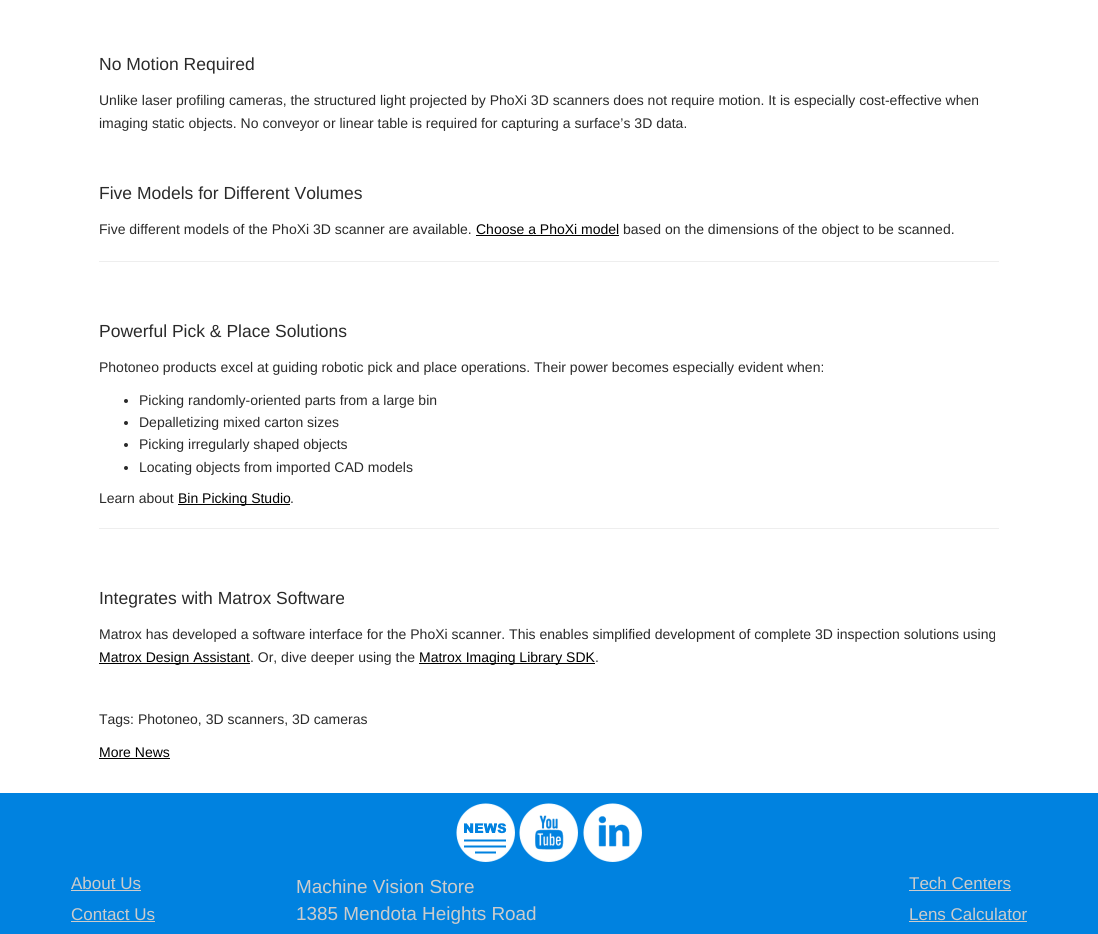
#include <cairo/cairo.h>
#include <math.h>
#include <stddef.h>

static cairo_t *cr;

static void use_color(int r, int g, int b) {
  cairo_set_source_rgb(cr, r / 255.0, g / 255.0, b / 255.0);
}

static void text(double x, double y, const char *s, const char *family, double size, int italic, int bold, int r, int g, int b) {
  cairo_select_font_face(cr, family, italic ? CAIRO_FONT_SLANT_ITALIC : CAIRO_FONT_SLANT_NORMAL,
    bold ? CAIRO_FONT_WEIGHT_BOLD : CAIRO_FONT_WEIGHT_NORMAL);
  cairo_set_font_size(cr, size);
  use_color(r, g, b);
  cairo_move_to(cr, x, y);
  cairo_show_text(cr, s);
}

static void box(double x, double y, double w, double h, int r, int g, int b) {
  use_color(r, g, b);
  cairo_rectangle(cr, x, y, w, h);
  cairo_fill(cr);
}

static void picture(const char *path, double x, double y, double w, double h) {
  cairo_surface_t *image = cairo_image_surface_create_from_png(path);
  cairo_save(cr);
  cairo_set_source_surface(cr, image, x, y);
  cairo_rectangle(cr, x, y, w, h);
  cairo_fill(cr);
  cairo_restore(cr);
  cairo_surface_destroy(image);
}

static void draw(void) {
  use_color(0, 130, 224);
  cairo_paint(cr);
  box(0, 0, 1098, 793, 255, 255, 255);
  box(476, 235, 143, 1, 0, 0, 0);
  box(99, 261, 900, 1, 238, 238, 238);
  use_color(42, 42, 42);
  cairo_arc(cr, 126, 401, 2, 0, 2 * M_PI);
  cairo_fill(cr);
  cairo_arc(cr, 126, 423, 2, 0, 2 * M_PI);
  cairo_fill(cr);
  cairo_arc(cr, 126, 445, 2, 0, 2 * M_PI);
  cairo_fill(cr);
  cairo_arc(cr, 126, 468, 2, 0, 2 * M_PI);
  cairo_fill(cr);
  box(178, 504, 112, 1, 0, 0, 0);
  box(99, 528, 900, 1, 238, 238, 238);
  box(99, 663, 151, 1, 0, 0, 0);
  box(419, 663, 176, 1, 0, 0, 0);
  box(99, 758, 71, 1, 0, 0, 0);
  picture("img_01.png", 456, 803, 59, 59);
  picture("img_02.png", 519, 803, 59, 59);
  picture("img_03.png", 583, 803, 59, 59);
  box(71, 890, 70, 1, 204, 204, 204);
  box(71, 921, 84, 1, 204, 204, 204);
  box(909, 890, 102, 1, 204, 204, 204);
  box(909, 921, 118, 1, 204, 204, 204);
  text(99, 70, "No Motion Required", "Liberation Sans", 17.5, 0, 0, 42, 42, 42);
  text(99, 105, "Unlike laser profiling cameras, the structured light projected by PhoXi 3D scanners does not require motion. It is especially cost-effective when", "Liberation Sans", 14, 0, 0, 42, 42, 42);
  text(99, 128, "imaging static objects. No conveyor or linear table is required for capturing a surface’s 3D data.", "Liberation Sans", 14, 0, 0, 42, 42, 42);
  text(99, 199, "Five Models for Different Volumes", "Liberation Sans", 17.5, 0, 0, 42, 42, 42);
  text(99, 234, "Five different models of the PhoXi 3D scanner are available.", "Liberation Sans", 14, 0, 0, 42, 42, 42);
  text(476, 234, "Choose a PhoXi model", "Liberation Sans", 14, 0, 0, 0, 0, 0);
  text(623, 234, "based on the dimensions of the object to be scanned.", "Liberation Sans", 14, 0, 0, 42, 42, 42);
  text(99, 337, "Powerful Pick & Place Solutions", "Liberation Sans", 17.5, 0, 0, 42, 42, 42);
  text(99, 372, "Photoneo products excel at guiding robotic pick and place operations. Their power becomes especially evident when:", "Liberation Sans", 14, 0, 0, 42, 42, 42);
  text(139, 405, "Picking randomly-oriented parts from a large bin", "Liberation Sans", 14, 0, 0, 42, 42, 42);
  text(139, 427, "Depalletizing mixed carton sizes", "Liberation Sans", 14, 0, 0, 42, 42, 42);
  text(139, 449, "Picking irregularly shaped objects", "Liberation Sans", 14, 0, 0, 42, 42, 42);
  text(139, 472, "Locating objects from imported CAD models", "Liberation Sans", 14, 0, 0, 42, 42, 42);
  text(99, 503, "Learn about", "Liberation Sans", 14, 0, 0, 42, 42, 42);
  text(178, 503, "Bin Picking Studio", "Liberation Sans", 14, 0, 0, 0, 0, 0);
  text(290, 503, ".", "Liberation Sans", 14, 0, 0, 42, 42, 42);
  text(99, 604, "Integrates with Matrox Software", "Liberation Sans", 17.5, 0, 0, 42, 42, 42);
  text(99, 639, "Matrox has developed a software interface for the PhoXi scanner. This enables simplified development of complete 3D inspection solutions using", "Liberation Sans", 14, 0, 0, 42, 42, 42);
  text(99, 662, "Matrox Design Assistant", "Liberation Sans", 14, 0, 0, 0, 0, 0);
  text(250, 662, ". Or, dive deeper using the", "Liberation Sans", 14, 0, 0, 42, 42, 42);
  text(419, 662, "Matrox Imaging Library SDK", "Liberation Sans", 14, 0, 0, 0, 0, 0);
  text(595, 662, ".", "Liberation Sans", 14, 0, 0, 42, 42, 42);
  text(99, 724, "Tags: Photoneo, 3D scanners, 3D cameras", "Liberation Sans", 14, 0, 0, 42, 42, 42);
  text(99, 757, "More News", "Liberation Sans", 14, 0, 0, 0, 0, 0);
  text(71, 889, "About Us", "Liberation Sans", 17, 0, 0, 204, 204, 204);
  text(71, 920, "Contact Us", "Liberation Sans", 17, 0, 0, 204, 204, 204);
  text(296, 893, "Machine Vision Store", "Liberation Sans", 18.9, 0, 0, 204, 204, 204);
  text(296, 920, "1385 Mendota Heights Road", "Liberation Sans", 18.9, 0, 0, 204, 204, 204);
  text(909, 889, "Tech Centers", "Liberation Sans", 17, 0, 0, 204, 204, 204);
  text(909, 920, "Lens Calculator", "Liberation Sans", 17, 0, 0, 204, 204, 204);
}

int main(void) {
  cairo_surface_t *surface = cairo_image_surface_create(CAIRO_FORMAT_RGB24, 1098, 934);
  cr = cairo_create(surface);
  cairo_font_options_t *options = cairo_font_options_create();
  cairo_font_options_set_hint_metrics(options, CAIRO_HINT_METRICS_OFF);
  cairo_font_options_set_hint_style(options, CAIRO_HINT_STYLE_NONE);
  cairo_set_font_options(cr, options);
  cairo_set_miter_limit(cr, 4);
  draw();
  cairo_surface_write_to_png(surface, "out.png");
  cairo_font_options_destroy(options);
  cairo_destroy(cr);
  cairo_surface_destroy(surface);
  return 0;
}
